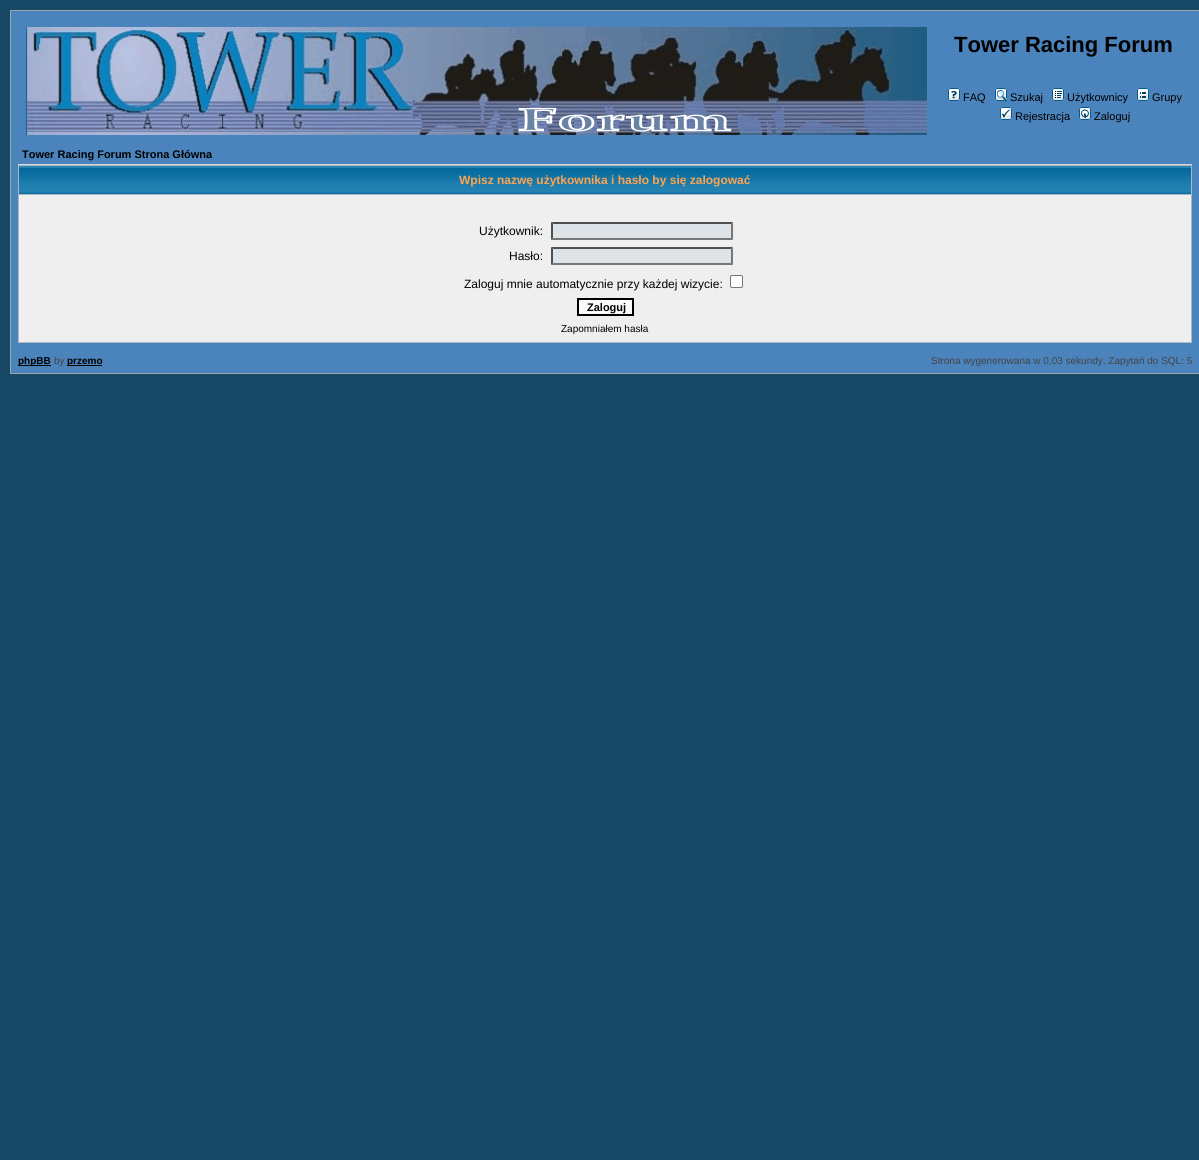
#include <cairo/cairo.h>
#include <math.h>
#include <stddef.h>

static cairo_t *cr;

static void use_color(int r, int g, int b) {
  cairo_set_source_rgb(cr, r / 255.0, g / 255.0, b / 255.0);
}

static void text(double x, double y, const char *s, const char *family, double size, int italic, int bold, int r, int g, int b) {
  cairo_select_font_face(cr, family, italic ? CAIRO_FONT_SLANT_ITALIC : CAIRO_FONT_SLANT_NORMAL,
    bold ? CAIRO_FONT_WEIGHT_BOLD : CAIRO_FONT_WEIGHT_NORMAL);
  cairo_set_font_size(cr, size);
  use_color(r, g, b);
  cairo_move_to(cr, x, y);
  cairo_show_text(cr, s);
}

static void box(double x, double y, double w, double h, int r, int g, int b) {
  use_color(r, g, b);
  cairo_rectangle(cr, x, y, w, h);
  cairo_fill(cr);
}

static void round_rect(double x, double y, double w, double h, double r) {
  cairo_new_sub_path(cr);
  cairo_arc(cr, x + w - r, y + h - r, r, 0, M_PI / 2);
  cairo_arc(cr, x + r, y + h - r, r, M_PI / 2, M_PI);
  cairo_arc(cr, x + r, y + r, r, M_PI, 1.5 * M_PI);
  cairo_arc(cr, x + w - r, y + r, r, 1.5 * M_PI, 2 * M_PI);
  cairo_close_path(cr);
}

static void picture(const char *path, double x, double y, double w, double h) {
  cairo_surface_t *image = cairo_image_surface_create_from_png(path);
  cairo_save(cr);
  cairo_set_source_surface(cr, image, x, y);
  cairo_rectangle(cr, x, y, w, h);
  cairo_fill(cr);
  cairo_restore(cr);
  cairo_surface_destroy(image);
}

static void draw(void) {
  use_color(23, 73, 103);
  cairo_paint(cr);
  use_color(75, 131, 188);
  cairo_rectangle(cr, 10.5, 10.5, 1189, 363);
  cairo_fill_preserve(cr);
  use_color(152, 170, 177);
  cairo_set_line_width(cr, 1);
  cairo_stroke(cr);
  picture("img_01.png", 26, 27, 901, 108);
  picture("img_02.png", 948, 88, 12, 13);
  picture("img_03.png", 995, 88, 12, 13);
  picture("img_04.png", 1052, 88, 12, 13);
  picture("img_05.png", 1137, 88, 12, 13);
  picture("img_06.png", 1000, 107, 12, 13);
  picture("img_07.png", 1079, 107, 12, 13);
  box(18, 165, 1174, 178, 169, 184, 194);
  box(18, 164, 1174, 1, 209, 215, 220);
  picture("img_08.png", 19, 166, 1172, 28);
  box(19, 195, 1172, 147, 239, 239, 239);
  box(551, 222, 182, 18, 222, 227, 231);
  use_color(79, 79, 79);
  cairo_new_path(cr);
  cairo_move_to(cr, 551, 222);
  cairo_line_to(cr, 733, 222);
  cairo_line_to(cr, 731, 224);
  cairo_line_to(cr, 553, 224);
  cairo_close_path(cr);
  cairo_fill(cr);
  use_color(118, 118, 118);
  cairo_new_path(cr);
  cairo_move_to(cr, 733, 222);
  cairo_line_to(cr, 733, 240);
  cairo_line_to(cr, 731, 238);
  cairo_line_to(cr, 731, 224);
  cairo_close_path(cr);
  cairo_fill(cr);
  cairo_new_path(cr);
  cairo_move_to(cr, 733, 240);
  cairo_line_to(cr, 551, 240);
  cairo_line_to(cr, 553, 238);
  cairo_line_to(cr, 731, 238);
  cairo_close_path(cr);
  cairo_fill(cr);
  use_color(79, 79, 79);
  cairo_new_path(cr);
  cairo_move_to(cr, 551, 240);
  cairo_line_to(cr, 551, 222);
  cairo_line_to(cr, 553, 224);
  cairo_line_to(cr, 553, 238);
  cairo_close_path(cr);
  cairo_fill(cr);
  box(551, 247, 182, 18, 222, 227, 231);
  use_color(79, 79, 79);
  cairo_new_path(cr);
  cairo_move_to(cr, 551, 247);
  cairo_line_to(cr, 733, 247);
  cairo_line_to(cr, 731, 249);
  cairo_line_to(cr, 553, 249);
  cairo_close_path(cr);
  cairo_fill(cr);
  use_color(118, 118, 118);
  cairo_new_path(cr);
  cairo_move_to(cr, 733, 247);
  cairo_line_to(cr, 733, 265);
  cairo_line_to(cr, 731, 263);
  cairo_line_to(cr, 731, 249);
  cairo_close_path(cr);
  cairo_fill(cr);
  cairo_new_path(cr);
  cairo_move_to(cr, 733, 265);
  cairo_line_to(cr, 551, 265);
  cairo_line_to(cr, 553, 263);
  cairo_line_to(cr, 731, 263);
  cairo_close_path(cr);
  cairo_fill(cr);
  use_color(79, 79, 79);
  cairo_new_path(cr);
  cairo_move_to(cr, 551, 265);
  cairo_line_to(cr, 551, 247);
  cairo_line_to(cr, 553, 249);
  cairo_line_to(cr, 553, 263);
  cairo_close_path(cr);
  cairo_fill(cr);
  use_color(255, 255, 255);
  round_rect(730.5, 275.5, 12, 12, 1.5);
  cairo_fill_preserve(cr);
  use_color(118, 118, 118);
  cairo_stroke(cr);
  use_color(250, 250, 250);
  cairo_rectangle(cr, 578, 299, 55, 16);
  cairo_fill_preserve(cr);
  use_color(0, 0, 0);
  cairo_set_line_width(cr, 2);
  cairo_stroke(cr);
  box(18, 365, 33, 1, 0, 0, 0);
  box(67, 365, 35, 1, 0, 0, 0);
  text(954, 52, "Tower Racing Forum", "Liberation Sans", 22, 0, 1, 0, 0, 0);
  text(963, 101, "FAQ", "Liberation Sans", 11, 0, 0, 0, 0, 0);
  text(1010, 101, "Szukaj", "Liberation Sans", 11, 0, 0, 0, 0, 0);
  text(1067, 101, "Użytkownicy", "Liberation Sans", 11, 0, 0, 0, 0, 0);
  text(1152, 101, "Grupy", "Liberation Sans", 11, 0, 0, 0, 0, 0);
  text(1015, 120, "Rejestracja", "Liberation Sans", 11, 0, 0, 0, 0, 0);
  text(1094, 120, "Zaloguj", "Liberation Sans", 11, 0, 0, 0, 0, 0);
  text(22, 158, "Tower Racing Forum Strona Główna", "Liberation Sans", 11, 0, 1, 0, 0, 0);
  text(459, 184, "Wpisz nazwę użytkownika i hasło by się zalogować", "Liberation Sans", 12, 0, 1, 255, 163, 79);
  text(479, 235, "Użytkownik:", "Liberation Sans", 12, 0, 0, 0, 0, 0);
  text(509, 260, "Hasło:", "Liberation Sans", 12, 0, 0, 0, 0, 0);
  text(464, 288, "Zaloguj mnie automatycznie przy każdej wizycie:", "Liberation Sans", 12, 0, 0, 0, 0, 0);
  text(587, 311, "Zaloguj", "Liberation Sans", 11, 0, 1, 0, 0, 0);
  text(561, 332, "Zapomniałem hasła", "Liberation Sans", 10, 0, 0, 0, 0, 0);
  text(18, 364, "phpBB", "Liberation Sans", 10, 0, 1, 0, 0, 0);
  text(54, 364, "by", "Liberation Sans", 10, 0, 0, 68, 68, 68);
  text(67, 364, "przemo", "Liberation Sans", 10, 0, 1, 0, 0, 0);
  text(931, 364, "Strona wygenerowana w 0,03 sekundy. Zapytań do SQL: 5", "Liberation Sans", 10, 0, 0, 68, 68, 68);
}

int main(void) {
  cairo_surface_t *surface = cairo_image_surface_create(CAIRO_FORMAT_RGB24, 1199, 1160);
  cr = cairo_create(surface);
  cairo_font_options_t *options = cairo_font_options_create();
  cairo_font_options_set_hint_metrics(options, CAIRO_HINT_METRICS_OFF);
  cairo_font_options_set_hint_style(options, CAIRO_HINT_STYLE_NONE);
  cairo_set_font_options(cr, options);
  cairo_set_miter_limit(cr, 4);
  draw();
  cairo_surface_write_to_png(surface, "out.png");
  cairo_font_options_destroy(options);
  cairo_destroy(cr);
  cairo_surface_destroy(surface);
  return 0;
}
